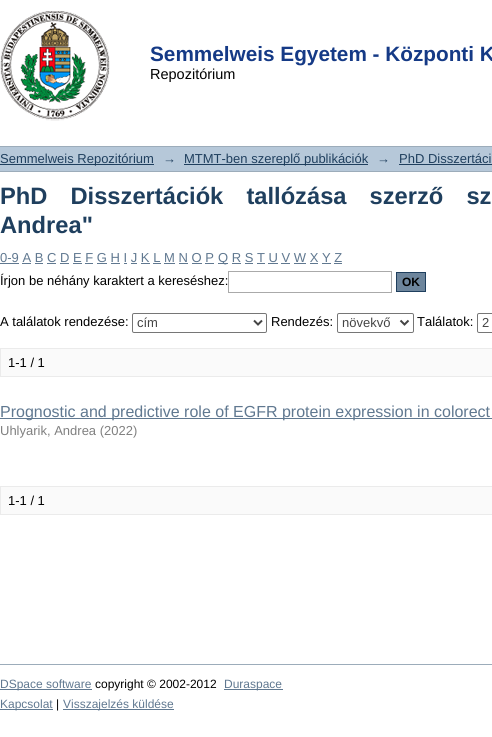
#include <cairo/cairo.h>
#include <math.h>
#include <stddef.h>

static cairo_t *cr;

static void use_color(int r, int g, int b) {
  cairo_set_source_rgb(cr, r / 255.0, g / 255.0, b / 255.0);
}

static void text(double x, double y, const char *s, const char *family, double size, int italic, int bold, int r, int g, int b) {
  cairo_select_font_face(cr, family, italic ? CAIRO_FONT_SLANT_ITALIC : CAIRO_FONT_SLANT_NORMAL,
    bold ? CAIRO_FONT_WEIGHT_BOLD : CAIRO_FONT_WEIGHT_NORMAL);
  cairo_set_font_size(cr, size);
  use_color(r, g, b);
  cairo_move_to(cr, x, y);
  cairo_show_text(cr, s);
}

static void spaced_text(double x, double y, const char *s, double letter, double word) {
  cairo_move_to(cr, x, y);
  while (*s) {
    char ch[5] = {0};
    int n = 0;
    do ch[n++] = *s++; while ((*s & 0xC0) == 0x80);
    cairo_show_text(cr, ch);
    cairo_rel_move_to(cr, letter + word * (*ch == ' '), 0);
  }
}

static void box(double x, double y, double w, double h, int r, int g, int b) {
  use_color(r, g, b);
  cairo_rectangle(cr, x, y, w, h);
  cairo_fill(cr);
}

static void round_rect(double x, double y, double w, double h, double r) {
  cairo_new_sub_path(cr);
  cairo_arc(cr, x + w - r, y + h - r, r, 0, M_PI / 2);
  cairo_arc(cr, x + r, y + h - r, r, M_PI / 2, M_PI);
  cairo_arc(cr, x + r, y + r, r, M_PI, 1.5 * M_PI);
  cairo_arc(cr, x + w - r, y + r, r, 1.5 * M_PI, 2 * M_PI);
  cairo_close_path(cr);
}

static void picture(const char *path, double x, double y, double w, double h) {
  cairo_surface_t *image = cairo_image_surface_create_from_png(path);
  cairo_save(cr);
  cairo_set_source_surface(cr, image, x, y);
  cairo_rectangle(cr, x, y, w, h);
  cairo_fill(cr);
  cairo_restore(cr);
  cairo_surface_destroy(image);
}

static void draw(void) {
  use_color(255, 255, 255);
  cairo_paint(cr);
  picture("img_01.png", 0, 11, 110, 110);
  box(0, 147, 492, 24, 182, 200, 217);
  box(0, 146, 492, 1, 156, 172, 186);
  box(0, 171, 492, 1, 156, 172, 186);
  box(0, 164, 154, 1, 31, 63, 94);
  box(184, 164, 184, 1, 31, 63, 94);
  box(399, 164, 93, 1, 31, 63, 94);
  box(0, 263, 19, 1, 96, 120, 144);
  box(218, 263, 10, 1, 96, 120, 144);
  box(22, 263, 9, 1, 96, 120, 144);
  box(35, 263, 8, 1, 96, 120, 144);
  box(47, 263, 9, 1, 96, 120, 144);
  box(60, 263, 9, 1, 96, 120, 144);
  box(73, 263, 9, 1, 96, 120, 144);
  box(85, 263, 8, 1, 96, 120, 144);
  box(97, 263, 10, 1, 96, 120, 144);
  box(111, 263, 9, 1, 96, 120, 144);
  box(124, 263, 3, 1, 96, 120, 144);
  box(131, 263, 6, 1, 96, 120, 144);
  box(141, 263, 9, 1, 96, 120, 144);
  box(153, 263, 8, 1, 96, 120, 144);
  box(164, 263, 11, 1, 96, 120, 144);
  box(179, 263, 9, 1, 96, 120, 144);
  box(192, 263, 10, 1, 96, 120, 144);
  box(205, 263, 9, 1, 96, 120, 144);
  box(232, 263, 9, 1, 96, 120, 144);
  box(245, 263, 8, 1, 96, 120, 144);
  box(257, 263, 8, 1, 96, 120, 144);
  box(268, 263, 10, 1, 96, 120, 144);
  box(281, 263, 9, 1, 96, 120, 144);
  box(294, 263, 12, 1, 96, 120, 144);
  box(310, 263, 8, 1, 96, 120, 144);
  box(322, 263, 9, 1, 96, 120, 144);
  box(334, 263, 8, 1, 96, 120, 144);
  cairo_rectangle(cr, 228.5, 271.5, 163, 21);
  use_color(170, 170, 170);
  cairo_set_line_width(cr, 1);
  cairo_stroke(cr);
  use_color(109, 133, 156);
  cairo_rectangle(cr, 396.5, 272.5, 29, 19);
  cairo_fill_preserve(cr);
  use_color(31, 63, 94);
  cairo_stroke(cr);
  round_rect(132.5, 313.5, 134, 19, 1.5);
  use_color(118, 118, 118);
  cairo_stroke(cr);
  cairo_new_path(cr);
  cairo_move_to(cr, 254, 320.5);
  cairo_line_to(cr, 258, 324.5);
  cairo_line_to(cr, 262, 320.5);
  use_color(68, 68, 68);
  cairo_set_line_width(cr, 2);
  cairo_stroke(cr);
  round_rect(337.5, 313.5, 76, 19, 1.5);
  use_color(118, 118, 118);
  cairo_set_line_width(cr, 1);
  cairo_stroke(cr);
  cairo_new_path(cr);
  cairo_move_to(cr, 400.5, 320.5);
  cairo_line_to(cr, 404.5, 324.5);
  cairo_line_to(cr, 408.5, 320.5);
  use_color(68, 68, 68);
  cairo_set_line_width(cr, 2);
  cairo_stroke(cr);
  round_rect(477.5, 313.5, 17, 19, 1.5);
  use_color(118, 118, 118);
  cairo_set_line_width(cr, 1);
  cairo_stroke(cr);
  use_color(250, 250, 250);
  cairo_rectangle(cr, 0.5, 348.5, 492, 28);
  cairo_fill_preserve(cr);
  use_color(235, 235, 235);
  cairo_stroke(cr);
  box(0, 418, 492, 1, 96, 120, 144);
  use_color(250, 250, 250);
  cairo_rectangle(cr, 0.5, 486.5, 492, 28);
  cairo_fill_preserve(cr);
  use_color(235, 235, 235);
  cairo_stroke(cr);
  box(0, 664, 492, 1, 156, 172, 186);
  box(0, 689, 92, 1, 96, 120, 144);
  box(224, 689, 59, 1, 96, 120, 144);
  box(0, 709, 53, 1, 96, 120, 144);
  box(63, 709, 111, 1, 96, 120, 144);
  text(150, 61, "Semmelweis Egyetem - Központi K", "Liberation Sans", 20.75, 0, 1, 21, 58, 134);
  text(150, 79, "Repozitórium", "Liberation Sans", 14.5, 0, 0, 0, 0, 0);
  text(0, 163, "Semmelweis Repozitórium", "Liberation Sans", 13, 0, 0, 31, 63, 94);
  text(163, 163, "→", "Liberation Sans", 13, 0, 0, 31, 63, 94);
  text(184, 163, "MTMT-ben szereplő publikációk", "Liberation Sans", 13, 0, 0, 31, 63, 94);
  text(377, 163, "→", "Liberation Sans", 13, 0, 0, 31, 63, 94);
  text(399, 163, "PhD Disszertáci", "Liberation Sans", 13, 0, 0, 31, 63, 94);
  cairo_select_font_face(cr, "Liberation Sans", CAIRO_FONT_SLANT_NORMAL, CAIRO_FONT_WEIGHT_BOLD);
  cairo_set_font_size(cr, 23.7);
  spaced_text(0, 204, "PhD Disszertációk tallózása szerző sz", 0, 16.5);
  text(0, 233, "Andrea\"", "Liberation Sans", 23.7, 0, 1, 31, 63, 94);
  text(0, 262, "0-9 A B C D E F G H I J K L M N O P", "Liberation Sans", 13, 0, 0, 96, 120, 144);
  text(218, 262, "Q R S T U V W X Y Z", "Liberation Sans", 13, 0, 0, 96, 120, 144);
  text(0, 285, "Írjon be néhány karaktert a kereséshez:", "Liberation Sans", 13, 0, 0, 0, 0, 0);
  text(402, 286, "OK", "Liberation Sans", 12, 0, 1, 0, 0, 0);
  text(0, 326, "A találatok rendezése:", "Liberation Sans", 13, 0, 0, 0, 0, 0);
  text(137, 327, "cím", "Liberation Sans", 13, 0, 0, 68, 68, 68);
  text(271, 326, "Rendezés:", "Liberation Sans", 13, 0, 0, 0, 0, 0);
  text(342, 327, "növekvő", "Liberation Sans", 13, 0, 0, 68, 68, 68);
  text(417, 326, "Találatok:", "Liberation Sans", 13, 0, 0, 0, 0, 0);
  text(482, 327, "2", "Liberation Sans", 13, 0, 0, 68, 68, 68);
  text(8, 367, "1-1 / 1", "Liberation Sans", 13, 0, 0, 0, 0, 0);
  text(0, 417, "Prognostic and predictive role of EGFR protein expression in colorect", "Liberation Sans", 16, 0, 0, 96, 120, 144);
  text(0, 435, "Uhlyarik, Andrea (2022)", "Liberation Sans", 13, 0, 0, 128, 128, 128);
  text(8, 505, "1-1 / 1", "Liberation Sans", 13, 0, 0, 0, 0, 0);
  text(0, 688, "DSpace software", "Liberation Sans", 12, 0, 0, 96, 120, 144);
  text(95, 688, "copyright © 2002-2012", "Liberation Sans", 12, 0, 0, 0, 0, 0);
  text(224, 688, "Duraspace", "Liberation Sans", 12, 0, 0, 96, 120, 144);
  text(0, 708, "Kapcsolat", "Liberation Sans", 12, 0, 0, 96, 120, 144);
  text(56, 708, "|", "Liberation Sans", 12, 0, 0, 0, 0, 0);
  text(63, 708, "Visszajelzés küldése", "Liberation Sans", 12, 0, 0, 96, 120, 144);
}

int main(void) {
  cairo_surface_t *surface = cairo_image_surface_create(CAIRO_FORMAT_RGB24, 492, 737);
  cr = cairo_create(surface);
  cairo_font_options_t *options = cairo_font_options_create();
  cairo_font_options_set_hint_metrics(options, CAIRO_HINT_METRICS_OFF);
  cairo_font_options_set_hint_style(options, CAIRO_HINT_STYLE_NONE);
  cairo_set_font_options(cr, options);
  cairo_set_miter_limit(cr, 4);
  draw();
  cairo_surface_write_to_png(surface, "out.png");
  cairo_font_options_destroy(options);
  cairo_destroy(cr);
  cairo_surface_destroy(surface);
  return 0;
}
